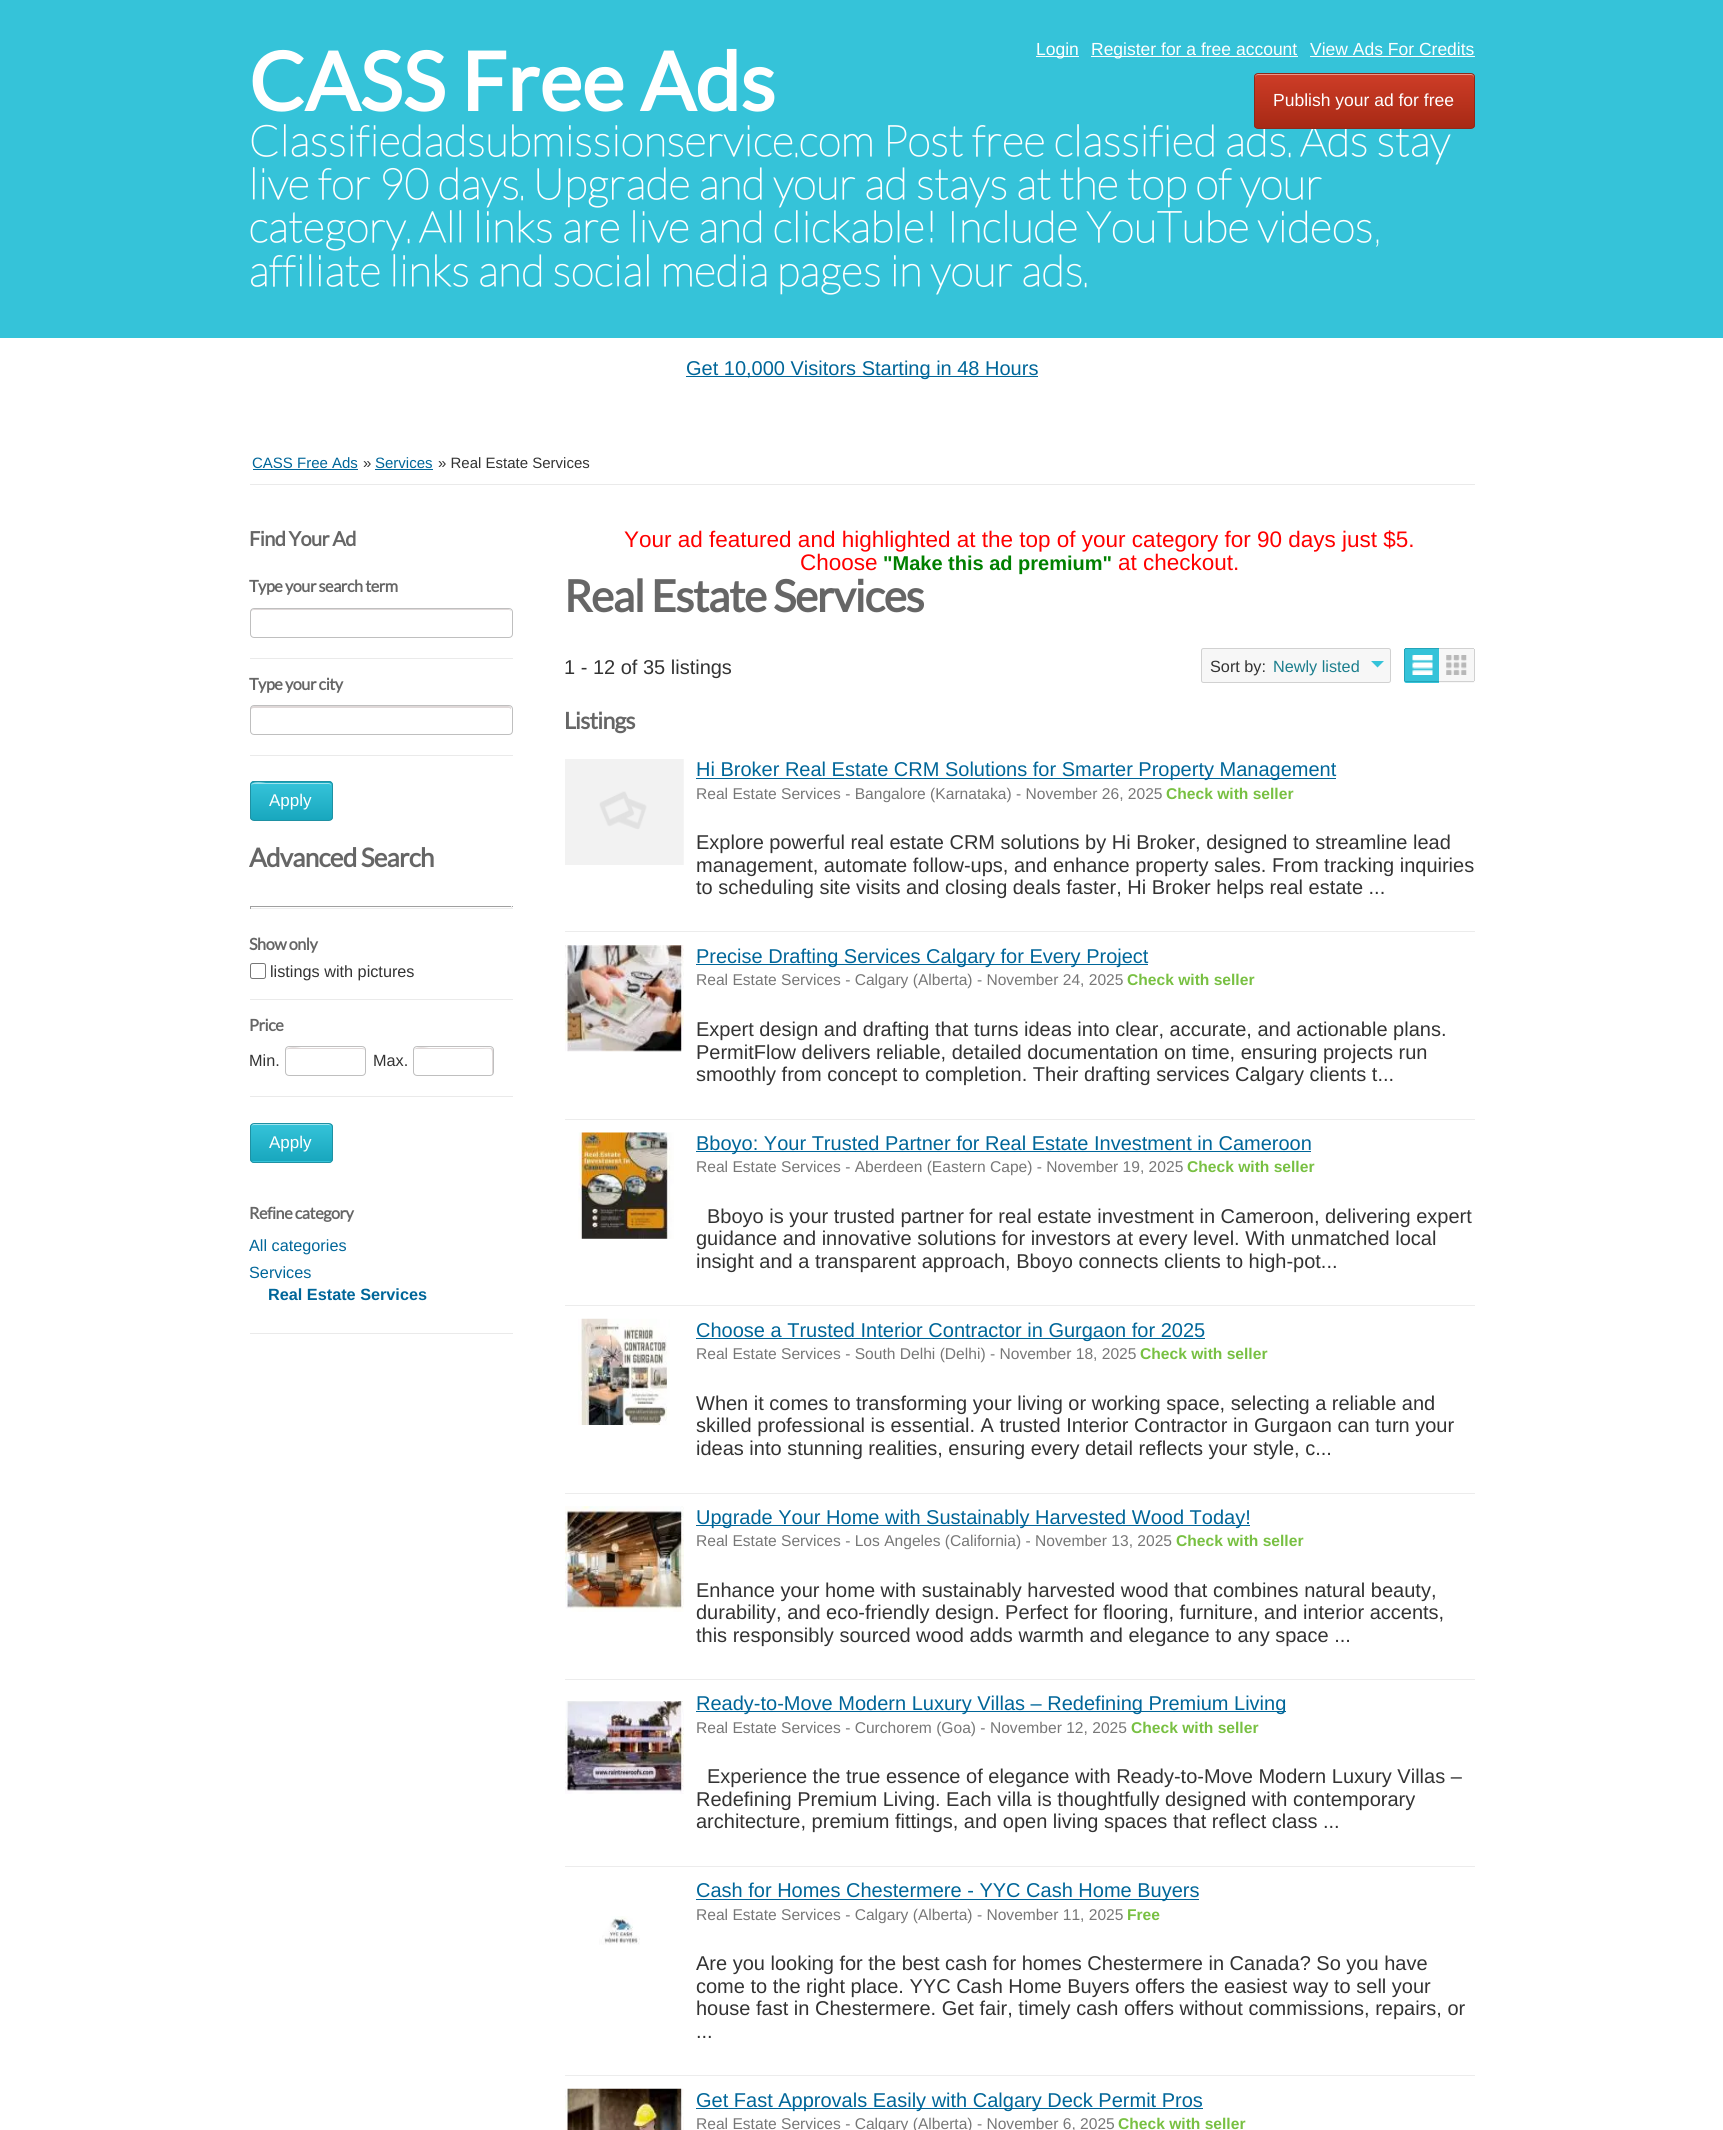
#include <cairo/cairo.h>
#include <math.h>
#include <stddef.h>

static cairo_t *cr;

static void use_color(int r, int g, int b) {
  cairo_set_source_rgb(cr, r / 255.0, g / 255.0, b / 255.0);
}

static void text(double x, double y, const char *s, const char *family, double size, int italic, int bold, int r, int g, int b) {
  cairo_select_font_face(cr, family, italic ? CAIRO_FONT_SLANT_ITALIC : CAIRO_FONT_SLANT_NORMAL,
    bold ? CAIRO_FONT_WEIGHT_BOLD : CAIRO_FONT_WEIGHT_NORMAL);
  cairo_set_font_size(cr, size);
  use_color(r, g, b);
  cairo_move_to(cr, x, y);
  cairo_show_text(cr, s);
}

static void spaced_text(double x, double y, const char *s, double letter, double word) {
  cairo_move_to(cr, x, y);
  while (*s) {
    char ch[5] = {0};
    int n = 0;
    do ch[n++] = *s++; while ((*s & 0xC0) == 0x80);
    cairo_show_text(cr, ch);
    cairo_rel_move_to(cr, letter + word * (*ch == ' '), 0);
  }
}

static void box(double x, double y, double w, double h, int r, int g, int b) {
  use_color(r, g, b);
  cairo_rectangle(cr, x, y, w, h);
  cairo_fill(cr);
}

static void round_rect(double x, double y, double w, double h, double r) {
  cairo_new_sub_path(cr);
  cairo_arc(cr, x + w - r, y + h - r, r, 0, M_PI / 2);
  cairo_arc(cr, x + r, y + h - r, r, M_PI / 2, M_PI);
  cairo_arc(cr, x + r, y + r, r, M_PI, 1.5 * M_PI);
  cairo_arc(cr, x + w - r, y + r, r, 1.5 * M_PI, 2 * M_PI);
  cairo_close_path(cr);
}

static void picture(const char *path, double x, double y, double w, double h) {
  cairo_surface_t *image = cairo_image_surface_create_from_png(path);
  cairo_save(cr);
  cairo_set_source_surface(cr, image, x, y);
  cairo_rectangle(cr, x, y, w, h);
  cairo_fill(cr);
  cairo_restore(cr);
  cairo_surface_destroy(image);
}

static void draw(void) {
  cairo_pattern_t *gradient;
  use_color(255, 255, 255);
  cairo_paint(cr);
  box(0, 0, 1723, 338, 53, 195, 217);
  box(1036, 56, 43, 1, 255, 255, 255);
  box(1091, 56, 207, 1, 255, 255, 255);
  box(1310, 56, 165, 1, 255, 255, 255);
  box(686, 376, 352, 1, 0, 102, 153);
  box(250, 484, 1225, 1, 234, 234, 234);
  box(253, 469, 105, 1, 0, 102, 153);
  box(375, 469, 58, 1, 0, 102, 153);
  box(250, 658, 263, 1, 234, 234, 234);
  use_color(223, 216, 216);
  cairo_new_path(cr);
  cairo_move_to(cr, 254, 610);
  cairo_line_to(cr, 509, 610);
  cairo_curve_to(cr, 510, 610, 511, 611, 511, 612);
  cairo_curve_to(cr, 511, 610, 510, 609, 508, 609);
  cairo_line_to(cr, 254, 609);
  cairo_line_to(cr, 251, 610);
  cairo_line_to(cr, 251, 612);
  cairo_curve_to(cr, 251, 611, 252, 610, 254, 610);
  cairo_close_path(cr);
  cairo_fill(cr);
  round_rect(250.5, 608.5, 262, 29, 3.5);
  use_color(191, 191, 191);
  cairo_set_line_width(cr, 1);
  cairo_stroke(cr);
  box(250, 755, 263, 1, 234, 234, 234);
  use_color(223, 216, 216);
  cairo_new_path(cr);
  cairo_move_to(cr, 254, 708);
  cairo_line_to(cr, 509, 708);
  cairo_curve_to(cr, 510, 708, 511, 709, 511, 710);
  cairo_line_to(cr, 511, 708);
  cairo_curve_to(cr, 511, 707, 510, 706, 508, 706);
  cairo_line_to(cr, 254, 706);
  cairo_curve_to(cr, 252, 706, 251, 707, 251, 708);
  cairo_line_to(cr, 251, 710);
  cairo_curve_to(cr, 251, 709, 252, 708, 254, 708);
  cairo_close_path(cr);
  cairo_fill(cr);
  round_rect(250.5, 705.5, 262, 29, 3.5);
  use_color(191, 191, 191);
  cairo_stroke(cr);
  cairo_save(cr);
  round_rect(250, 781, 83, 40, 4);
  cairo_clip(cr);
  gradient = cairo_pattern_create_linear(291, 745, 291, 783);
  cairo_pattern_add_color_stop_rgba(gradient, 0, 0.208, 0.765, 0.851, 1);
  cairo_pattern_add_color_stop_rgba(gradient, 1, 0.094, 0.655, 0.745, 1);
  cairo_set_source(cr, gradient);
  cairo_pattern_destroy(gradient);
  cairo_rectangle(cr, 250, 781, 83, 2);
  cairo_fill(cr);
  gradient = cairo_pattern_create_linear(291, 783, 291, 820);
  cairo_pattern_add_color_stop_rgba(gradient, 0, 0.208, 0.765, 0.851, 1);
  cairo_pattern_add_color_stop_rgba(gradient, 1, 0.094, 0.655, 0.745, 1);
  cairo_set_source(cr, gradient);
  cairo_pattern_destroy(gradient);
  cairo_rectangle(cr, 250, 783, 83, 37);
  cairo_fill(cr);
  cairo_restore(cr);
  use_color(160, 227, 237);
  cairo_new_path(cr);
  cairo_move_to(cr, 254, 784);
  cairo_line_to(cr, 329, 784);
  cairo_curve_to(cr, 330, 784, 331, 785, 331, 786);
  cairo_curve_to(cr, 331, 784, 330, 783, 328, 783);
  cairo_line_to(cr, 266, 783);
  cairo_curve_to(cr, 265, 783, 251, 780, 251, 786);
  cairo_curve_to(cr, 251, 785, 252, 784, 254, 784);
  cairo_close_path(cr);
  cairo_fill(cr);
  round_rect(250.5, 781.5, 82, 39, 3.5);
  use_color(31, 145, 163);
  cairo_stroke(cr);
  box(250, 906, 263, 1, 159, 159, 159);
  box(511, 906, 1, 3, 238, 238, 238);
  box(250, 908, 263, 1, 238, 238, 238);
  box(250, 906, 1, 3, 159, 159, 159);
  box(250, 999, 263, 1, 234, 234, 234);
  round_rect(250.5, 963.5, 15, 15, 2);
  use_color(118, 118, 118);
  cairo_stroke(cr);
  box(250, 1096, 263, 1, 234, 234, 234);
  use_color(223, 216, 216);
  cairo_new_path(cr);
  cairo_move_to(cr, 289, 1049);
  cairo_line_to(cr, 362, 1049);
  cairo_curve_to(cr, 364, 1049, 365, 1050, 365, 1051);
  cairo_curve_to(cr, 365, 1049, 364, 1048, 362, 1048);
  cairo_line_to(cr, 301, 1048);
  cairo_curve_to(cr, 300, 1048, 286, 1045, 286, 1051);
  cairo_curve_to(cr, 286, 1050, 287, 1049, 289, 1049);
  cairo_close_path(cr);
  cairo_fill(cr);
  round_rect(285.5, 1046.5, 80, 29, 3.5);
  use_color(191, 191, 191);
  cairo_stroke(cr);
  use_color(223, 216, 216);
  cairo_new_path(cr);
  cairo_move_to(cr, 416, 1049);
  cairo_line_to(cr, 478, 1049);
  cairo_curve_to(cr, 493, 1049, 492, 1046, 492, 1059);
  cairo_line_to(cr, 492, 1075);
  cairo_curve_to(cr, 494, 1073, 493, 1064, 493, 1062);
  cairo_curve_to(cr, 493, 1045, 496, 1048, 478, 1048);
  cairo_line_to(cr, 429, 1048);
  cairo_curve_to(cr, 428, 1048, 414, 1045, 414, 1051);
  cairo_curve_to(cr, 414, 1050, 415, 1049, 416, 1049);
  cairo_close_path(cr);
  cairo_fill(cr);
  round_rect(413.5, 1046.5, 80, 29, 3.5);
  use_color(191, 191, 191);
  cairo_stroke(cr);
  cairo_save(cr);
  round_rect(250, 1123, 83, 40, 4);
  cairo_clip(cr);
  gradient = cairo_pattern_create_linear(291, 1124, 291, 1161);
  cairo_pattern_add_color_stop_rgba(gradient, 0, 0.208, 0.765, 0.851, 1);
  cairo_pattern_add_color_stop_rgba(gradient, 1, 0.094, 0.655, 0.745, 1);
  cairo_set_source(cr, gradient);
  cairo_pattern_destroy(gradient);
  cairo_rectangle(cr, 250, 1124, 83, 37);
  cairo_fill(cr);
  gradient = cairo_pattern_create_linear(291, 1161, 291, 1199);
  cairo_pattern_add_color_stop_rgba(gradient, 0, 0.208, 0.765, 0.851, 1);
  cairo_pattern_add_color_stop_rgba(gradient, 1, 0.094, 0.655, 0.745, 1);
  cairo_set_source(cr, gradient);
  cairo_pattern_destroy(gradient);
  cairo_rectangle(cr, 250, 1161, 83, 2);
  cairo_fill(cr);
  cairo_restore(cr);
  use_color(160, 227, 237);
  cairo_new_path(cr);
  cairo_move_to(cr, 254, 1125);
  cairo_line_to(cr, 329, 1125);
  cairo_curve_to(cr, 330, 1125, 331, 1126, 331, 1128);
  cairo_curve_to(cr, 331, 1121, 322, 1124, 316, 1124);
  cairo_line_to(cr, 266, 1124);
  cairo_curve_to(cr, 260, 1124, 251, 1121, 251, 1128);
  cairo_curve_to(cr, 251, 1126, 252, 1125, 254, 1125);
  cairo_close_path(cr);
  cairo_fill(cr);
  round_rect(250.5, 1123.5, 82, 39, 3.5);
  use_color(31, 145, 163);
  cairo_stroke(cr);
  box(250, 1333, 263, 1, 234, 234, 234);
  use_color(247, 247, 247);
  round_rect(1201.5, 648.5, 189, 34, 2);
  cairo_fill_preserve(cr);
  use_color(209, 209, 209);
  cairo_stroke(cr);
  use_color(53, 195, 217);
  cairo_new_path(cr);
  cairo_move_to(cr, 1371, 661);
  cairo_line_to(cr, 1384, 661);
  cairo_line_to(cr, 1377.5, 667.5);
  cairo_close_path(cr);
  cairo_fill(cr);
  cairo_new_path(cr);
  cairo_move_to(cr, 1406.5, 648);
  cairo_line_to(cr, 1440, 648);
  cairo_line_to(cr, 1440, 683);
  cairo_line_to(cr, 1406.5, 683);
  cairo_curve_to(cr, 1405, 683, 1404, 682, 1404, 680.5);
  cairo_line_to(cr, 1404, 650.5);
  cairo_curve_to(cr, 1404, 649, 1405, 648, 1406.5, 648);
  cairo_close_path(cr);
  cairo_fill(cr);
  box(1405, 648, 35, 1, 35, 164, 184);
  box(1405, 681, 35, 1, 35, 164, 184);
  box(1404, 649, 1, 32, 35, 164, 184);
  picture("img_01.png", 1412, 655, 21, 20);
  use_color(247, 247, 247);
  cairo_new_path(cr);
  cairo_move_to(cr, 1439, 648);
  cairo_line_to(cr, 1472.5, 648);
  cairo_curve_to(cr, 1474, 648, 1475, 649, 1475, 650.5);
  cairo_line_to(cr, 1475, 680.5);
  cairo_curve_to(cr, 1475, 682, 1474, 683, 1472.5, 683);
  cairo_line_to(cr, 1439, 683);
  cairo_close_path(cr);
  cairo_fill(cr);
  box(1439, 648, 35, 1, 209, 209, 209);
  box(1474, 649, 1, 32, 209, 209, 209);
  box(1439, 681, 35, 1, 209, 209, 209);
  picture("img_02.png", 1446, 655, 21, 20);
  box(565, 931, 910, 1, 236, 236, 236);
  picture("img_03.png", 565, 759, 119, 106);
  box(696, 778, 640, 1, 0, 102, 153);
  box(565, 1119, 910, 1, 236, 236, 236);
  picture("img_04.png", 565, 945, 119, 107);
  box(696, 964, 452, 1, 0, 102, 153);
  box(565, 1305, 910, 1, 236, 236, 236);
  picture("img_05.png", 578, 1132, 96, 107);
  box(696, 1151, 615, 1, 0, 102, 153);
  box(565, 1493, 910, 1, 236, 236, 236);
  picture("img_06.png", 578, 1318, 92, 107);
  box(696, 1338, 509, 1, 0, 102, 153);
  box(565, 1679, 910, 1, 236, 236, 236);
  picture("img_07.png", 565, 1506, 119, 106);
  box(696, 1525, 554, 1, 0, 102, 153);
  box(565, 1866, 910, 1, 236, 236, 236);
  picture("img_08.png", 565, 1701, 119, 93);
  box(696, 1711, 590, 1, 0, 102, 153);
  box(565, 2075, 910, 1, 236, 236, 236);
  picture("img_09.png", 599, 1916, 41, 29);
  box(696, 1899, 503, 1, 0, 102, 153);
  picture("img_10.png", 565, 2088, 119, 42);
  box(696, 2108, 507, 1, 0, 102, 153);
  text(1036, 55, "Login", "Liberation Sans", 17.5, 0, 0, 255, 255, 255);
  text(1091, 55, "Register for a free account", "Liberation Sans", 17.5, 0, 0, 255, 255, 255);
  text(1310, 55, "View Ads For Credits", "Liberation Sans", 17.5, 0, 0, 255, 255, 255);
  text(249, 111, "CASS Free Ads", "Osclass", 81, 0, 1, 255, 255, 255);
  text(249, 156, "Classifiedadsubmissionservice.com Post free classified ads. Ads stay", "Osclass ExtraLight", 43.2, 0, 0, 255, 255, 255);
  cairo_save(cr);
  round_rect(1254, 73, 221, 56, 4);
  cairo_clip(cr);
  gradient = cairo_pattern_create_linear(1364, 74, 1364, 128);
  cairo_pattern_add_color_stop_rgba(gradient, 0, 0.808, 0.239, 0.153, 1);
  cairo_pattern_add_color_stop_rgba(gradient, 1, 0.655, 0.161, 0.082, 1);
  cairo_set_source(cr, gradient);
  cairo_pattern_destroy(gradient);
  cairo_rectangle(cr, 1254, 74, 221, 54);
  cairo_fill(cr);
  cairo_restore(cr);
  use_color(233, 152, 139);
  cairo_new_path(cr);
  cairo_move_to(cr, 1258, 75);
  cairo_line_to(cr, 1471, 75);
  cairo_curve_to(cr, 1473, 75, 1474, 76, 1474, 78);
  cairo_line_to(cr, 1474, 76);
  cairo_curve_to(cr, 1474, 75, 1473, 74, 1472, 74);
  cairo_line_to(cr, 1258, 74);
  cairo_curve_to(cr, 1256, 74, 1255, 75, 1255, 76);
  cairo_line_to(cr, 1255, 78);
  cairo_curve_to(cr, 1255, 76, 1256, 75, 1258, 75);
  cairo_close_path(cr);
  cairo_fill(cr);
  round_rect(1254.5, 73.5, 220, 55, 3.5);
  use_color(141, 42, 27);
  cairo_stroke(cr);
  text(1273, 106, "Publish your ad for free", "Liberation Sans", 17.5, 0, 0, 255, 255, 255);
  text(249, 199, "live for 90 days. Upgrade and your ad stays at the top of your", "Osclass ExtraLight", 43.2, 0, 0, 255, 255, 255);
  text(249, 242, "category. All links are live and clickable! Include YouTube videos,", "Osclass ExtraLight", 43.2, 0, 0, 255, 255, 255);
  text(249, 286, "affiliate links and social media pages in your ads.", "Osclass ExtraLight", 43.2, 0, 0, 255, 255, 255);
  text(686, 375, "Get 10,000 Visitors Starting in 48 Hours", "Liberation Sans", 20, 0, 0, 0, 102, 153);
  text(252, 468, "CASS Free Ads", "Liberation Sans", 15, 0, 0, 0, 102, 153);
  text(363, 468, "»", "Liberation Sans", 15, 0, 0, 51, 51, 51);
  text(375, 468, "Services", "Liberation Sans", 15, 0, 0, 0, 102, 153);
  text(438, 468, "» Real Estate Services", "Liberation Sans", 15, 0, 0, 51, 51, 51);
  cairo_select_font_face(cr, "Osclass", CAIRO_FONT_SLANT_NORMAL, CAIRO_FONT_WEIGHT_BOLD);
  cairo_set_font_size(cr, 20);
  use_color(102, 102, 102);
  spaced_text(249, 546, "Find Your Ad", -0.6, 0);
  cairo_set_font_size(cr, 16.25);
  spaced_text(249, 592, "Type your search term", -0.5, 0);
  spaced_text(249, 690, "Type your city", -0.5, 0);
  text(269, 806, "Apply", "Liberation Sans", 17, 0, 0, 255, 255, 255);
  cairo_select_font_face(cr, "Osclass", CAIRO_FONT_SLANT_NORMAL, CAIRO_FONT_WEIGHT_BOLD);
  cairo_set_font_size(cr, 26);
  use_color(102, 102, 102);
  spaced_text(249, 867, "Advanced Search", -0.75, 0);
  cairo_set_font_size(cr, 16.25);
  spaced_text(249, 950, "Show only", -0.5, 0);
  text(270, 977, "listings with pictures", "Liberation Sans", 16.25, 0, 0, 51, 51, 51);
  cairo_select_font_face(cr, "Osclass", CAIRO_FONT_SLANT_NORMAL, CAIRO_FONT_WEIGHT_BOLD);
  use_color(102, 102, 102);
  spaced_text(249, 1031, "Price", -0.5, 0);
  text(249, 1066, "Min.", "Liberation Sans", 16.25, 0, 0, 51, 51, 51);
  text(373, 1066, "Max.", "Liberation Sans", 16.25, 0, 0, 51, 51, 51);
  text(269, 1148, "Apply", "Liberation Sans", 17, 0, 0, 255, 255, 255);
  cairo_select_font_face(cr, "Osclass", CAIRO_FONT_SLANT_NORMAL, CAIRO_FONT_WEIGHT_BOLD);
  cairo_set_font_size(cr, 16.25);
  use_color(102, 102, 102);
  spaced_text(249, 1219, "Refine category", -0.5, 0);
  text(249, 1251, "All categories", "Liberation Sans", 16.25, 0, 0, 0, 102, 153);
  text(249, 1278, "Services", "Liberation Sans", 16.25, 0, 0, 0, 102, 153);
  text(268, 1300, "Real Estate Services", "Liberation Sans", 16.25, 0, 1, 0, 102, 153);
  text(624, 547, "Your ad featured and highlighted at the top of your category for 90 days just $5.", "Liberation Sans", 22.5, 0, 0, 255, 0, 0);
  text(800, 570, "Choose", "Liberation Sans", 22.5, 0, 0, 255, 0, 0);
  text(883, 570, "\"Make this ad premium\"", "Liberation Sans", 20, 0, 1, 0, 128, 0);
  text(1118, 570, "at checkout.", "Liberation Sans", 22.5, 0, 0, 255, 0, 0);
  cairo_select_font_face(cr, "Osclass", CAIRO_FONT_SLANT_NORMAL, CAIRO_FONT_WEIGHT_BOLD);
  cairo_set_font_size(cr, 44);
  use_color(102, 102, 102);
  spaced_text(564, 612, "Real Estate Services", -1.3, 0);
  text(564, 674, "1 - 12 of 35 listings", "Liberation Sans", 20, 0, 0, 51, 51, 51);
  text(1210, 672, "Sort by:", "Liberation Sans", 16.25, 0, 0, 51, 51, 51);
  text(1273, 672, "Newly listed", "Liberation Sans", 16.25, 0, 0, 27, 126, 141);
  cairo_select_font_face(cr, "Osclass", CAIRO_FONT_SLANT_NORMAL, CAIRO_FONT_WEIGHT_BOLD);
  cairo_set_font_size(cr, 23);
  use_color(102, 102, 102);
  spaced_text(564, 729, "Listings", -0.75, 0);
  text(696, 776, "Hi Broker Real Estate CRM Solutions for Smarter Property Management", "Liberation Sans", 20, 0, 0, 0, 102, 153);
  text(696, 799, "Real Estate Services - Bangalore (Karnataka) - November 26, 2025", "Liberation Sans", 15.6, 0, 0, 119, 119, 119);
  text(1166, 799, "Check with seller", "Liberation Sans", 15.6, 0, 1, 120, 192, 66);
  text(696, 849, "Explore powerful real estate CRM solutions by Hi Broker, designed to streamline lead", "Liberation Sans", 20, 0, 0, 51, 51, 51);
  text(696, 872, "management, automate follow-ups, and enhance property sales. From tracking inquiries", "Liberation Sans", 20, 0, 0, 51, 51, 51);
  text(696, 894, "to scheduling site visits and closing deals faster, Hi Broker helps real estate ...", "Liberation Sans", 20, 0, 0, 51, 51, 51);
  text(696, 963, "Precise Drafting Services Calgary for Every Project", "Liberation Sans", 20, 0, 0, 0, 102, 153);
  text(696, 985, "Real Estate Services - Calgary (Alberta) - November 24, 2025", "Liberation Sans", 15.6, 0, 0, 119, 119, 119);
  text(1127, 985, "Check with seller", "Liberation Sans", 15.6, 0, 1, 120, 192, 66);
  text(696, 1036, "Expert design and drafting that turns ideas into clear, accurate, and actionable plans.", "Liberation Sans", 20, 0, 0, 51, 51, 51);
  text(696, 1059, "PermitFlow delivers reliable, detailed documentation on time, ensuring projects run", "Liberation Sans", 20, 0, 0, 51, 51, 51);
  text(696, 1081, "smoothly from concept to completion. Their drafting services Calgary clients t...", "Liberation Sans", 20, 0, 0, 51, 51, 51);
  text(696, 1150, "Bboyo: Your Trusted Partner for Real Estate Investment in Cameroon", "Liberation Sans", 20, 0, 0, 0, 102, 153);
  text(696, 1172, "Real Estate Services - Aberdeen (Eastern Cape) - November 19, 2025", "Liberation Sans", 15.6, 0, 0, 119, 119, 119);
  text(1187, 1172, "Check with seller", "Liberation Sans", 15.6, 0, 1, 120, 192, 66);
  text(707, 1223, "Bboyo is your trusted partner for real estate investment in Cameroon, delivering expert", "Liberation Sans", 20, 0, 0, 51, 51, 51);
  text(696, 1245, "guidance and innovative solutions for investors at every level. With unmatched local", "Liberation Sans", 20, 0, 0, 51, 51, 51);
  text(696, 1268, "insight and a transparent approach, Bboyo connects clients to high-pot...", "Liberation Sans", 20, 0, 0, 51, 51, 51);
  text(696, 1337, "Choose a Trusted Interior Contractor in Gurgaon for 2025", "Liberation Sans", 20, 0, 0, 0, 102, 153);
  text(696, 1359, "Real Estate Services - South Delhi (Delhi) - November 18, 2025", "Liberation Sans", 15.6, 0, 0, 119, 119, 119);
  text(1140, 1359, "Check with seller", "Liberation Sans", 15.6, 0, 1, 120, 192, 66);
  text(696, 1410, "When it comes to transforming your living or working space, selecting a reliable and", "Liberation Sans", 20, 0, 0, 51, 51, 51);
  text(696, 1432, "skilled professional is essential. A trusted Interior Contractor in Gurgaon can turn your", "Liberation Sans", 20, 0, 0, 51, 51, 51);
  text(696, 1455, "ideas into stunning realities, ensuring every detail reflects your style, c...", "Liberation Sans", 20, 0, 0, 51, 51, 51);
  text(696, 1524, "Upgrade Your Home with Sustainably Harvested Wood Today!", "Liberation Sans", 20, 0, 0, 0, 102, 153);
  text(696, 1546, "Real Estate Services - Los Angeles (California) - November 13, 2025", "Liberation Sans", 15.6, 0, 0, 119, 119, 119);
  text(1176, 1546, "Check with seller", "Liberation Sans", 15.6, 0, 1, 120, 192, 66);
  text(696, 1597, "Enhance your home with sustainably harvested wood that combines natural beauty,", "Liberation Sans", 20, 0, 0, 51, 51, 51);
  text(696, 1619, "durability, and eco-friendly design. Perfect for flooring, furniture, and interior accents,", "Liberation Sans", 20, 0, 0, 51, 51, 51);
  text(696, 1642, "this responsibly sourced wood adds warmth and elegance to any space ...", "Liberation Sans", 20, 0, 0, 51, 51, 51);
  text(696, 1710, "Ready-to-Move Modern Luxury Villas – Redefining Premium Living", "Liberation Sans", 20, 0, 0, 0, 102, 153);
  text(696, 1733, "Real Estate Services - Curchorem (Goa) - November 12, 2025", "Liberation Sans", 15.6, 0, 0, 119, 119, 119);
  text(1131, 1733, "Check with seller", "Liberation Sans", 15.6, 0, 1, 120, 192, 66);
  text(707, 1783, "Experience the true essence of elegance with Ready-to-Move Modern Luxury Villas –", "Liberation Sans", 20, 0, 0, 51, 51, 51);
  text(696, 1806, "Redefining Premium Living. Each villa is thoughtfully designed with contemporary", "Liberation Sans", 20, 0, 0, 51, 51, 51);
  text(696, 1828, "architecture, premium fittings, and open living spaces that reflect class ...", "Liberation Sans", 20, 0, 0, 51, 51, 51);
  text(696, 1897, "Cash for Homes Chestermere - YYC Cash Home Buyers", "Liberation Sans", 20, 0, 0, 0, 102, 153);
  text(696, 1920, "Real Estate Services - Calgary (Alberta) - November 11, 2025", "Liberation Sans", 15.6, 0, 0, 119, 119, 119);
  text(1127, 1920, "Free", "Liberation Sans", 15.6, 0, 1, 120, 192, 66);
  text(696, 1970, "Are you looking for the best cash for homes Chestermere in Canada? So you have", "Liberation Sans", 20, 0, 0, 51, 51, 51);
  text(696, 1993, "come to the right place. YYC Cash Home Buyers offers the easiest way to sell your", "Liberation Sans", 20, 0, 0, 51, 51, 51);
  text(696, 2015, "house fast in Chestermere. Get fair, timely cash offers without commissions, repairs, or", "Liberation Sans", 20, 0, 0, 51, 51, 51);
  text(696, 2038, "...", "Liberation Sans", 20, 0, 0, 51, 51, 51);
  text(696, 2107, "Get Fast Approvals Easily with Calgary Deck Permit Pros", "Liberation Sans", 20, 0, 0, 0, 102, 153);
  text(696, 2129, "Real Estate Services - Calgary (Alberta) - November 6, 2025", "Liberation Sans", 15.6, 0, 0, 119, 119, 119);
  text(1118, 2129, "Check with seller", "Liberation Sans", 15.6, 0, 1, 120, 192, 66);
}

int main(void) {
  cairo_surface_t *surface = cairo_image_surface_create(CAIRO_FORMAT_RGB24, 1723, 2130);
  cr = cairo_create(surface);
  cairo_font_options_t *options = cairo_font_options_create();
  cairo_font_options_set_hint_metrics(options, CAIRO_HINT_METRICS_OFF);
  cairo_font_options_set_hint_style(options, CAIRO_HINT_STYLE_NONE);
  cairo_set_font_options(cr, options);
  cairo_set_miter_limit(cr, 4);
  draw();
  cairo_surface_write_to_png(surface, "out.png");
  cairo_font_options_destroy(options);
  cairo_destroy(cr);
  cairo_surface_destroy(surface);
  return 0;
}
